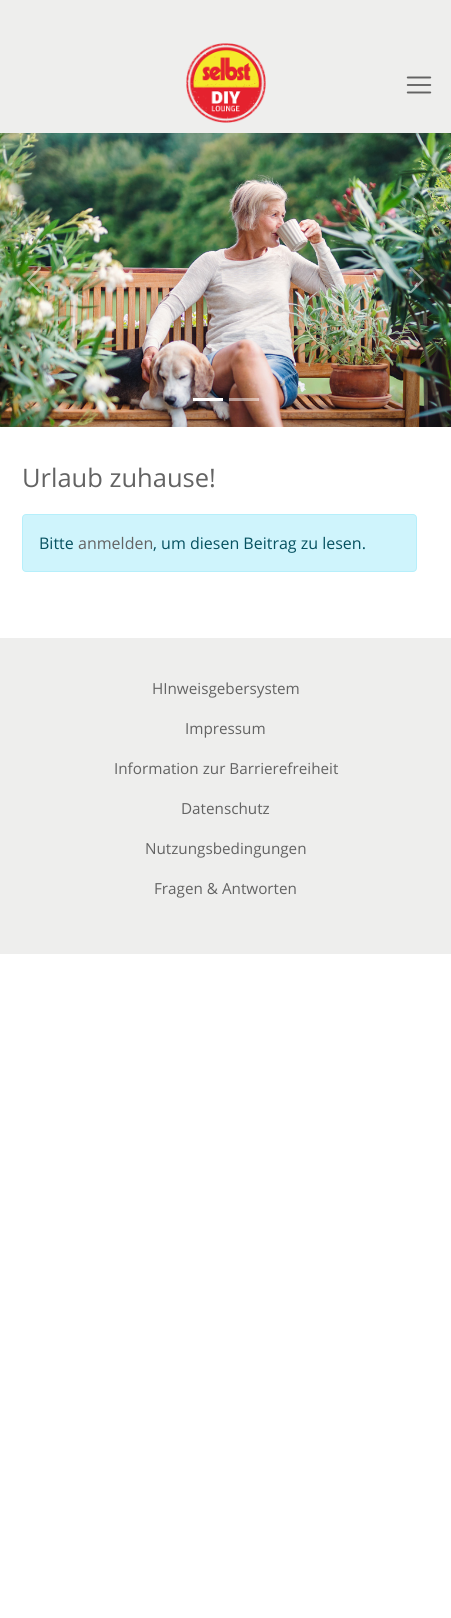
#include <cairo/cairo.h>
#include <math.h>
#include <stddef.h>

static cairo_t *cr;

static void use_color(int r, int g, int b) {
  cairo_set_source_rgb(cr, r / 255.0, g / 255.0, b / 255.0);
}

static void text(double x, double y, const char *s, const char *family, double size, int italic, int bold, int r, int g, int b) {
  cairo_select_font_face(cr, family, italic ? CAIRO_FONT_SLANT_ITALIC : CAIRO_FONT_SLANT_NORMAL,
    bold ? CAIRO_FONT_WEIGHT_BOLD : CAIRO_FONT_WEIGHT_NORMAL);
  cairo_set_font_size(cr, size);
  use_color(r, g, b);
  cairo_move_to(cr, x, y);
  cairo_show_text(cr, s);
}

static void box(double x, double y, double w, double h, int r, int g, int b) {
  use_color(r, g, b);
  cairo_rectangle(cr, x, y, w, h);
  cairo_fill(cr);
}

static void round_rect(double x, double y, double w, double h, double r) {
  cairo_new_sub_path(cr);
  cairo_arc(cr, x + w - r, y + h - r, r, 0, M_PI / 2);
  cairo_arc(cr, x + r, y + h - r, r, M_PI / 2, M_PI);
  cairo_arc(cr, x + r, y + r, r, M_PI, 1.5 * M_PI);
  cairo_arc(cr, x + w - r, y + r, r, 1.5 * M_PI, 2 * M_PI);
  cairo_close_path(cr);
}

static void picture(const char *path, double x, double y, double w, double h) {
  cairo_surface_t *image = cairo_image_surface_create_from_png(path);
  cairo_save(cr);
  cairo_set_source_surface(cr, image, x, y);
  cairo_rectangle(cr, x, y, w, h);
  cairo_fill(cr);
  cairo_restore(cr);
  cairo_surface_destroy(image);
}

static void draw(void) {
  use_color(255, 255, 255);
  cairo_paint(cr);
  box(0, 0, 451, 133, 238, 238, 237);
  picture("img_01.png", 186, 43, 80, 80);
  picture("img_02.png", 406, 76, 26, 18);
  picture("img_03.png", 0, 133, 451, 294);
  picture("img_04.png", 27, 267, 14, 26);
  picture("img_05.png", 410, 267, 14, 26);
  box(193, 398, 30, 3, 255, 255, 255);
  cairo_set_source_rgba(cr, 1, 1, 1, 0.5);
  cairo_rectangle(cr, 229, 398, 30, 3);
  cairo_fill(cr);
  use_color(207, 244, 252);
  round_rect(22.5, 514.5, 394, 57, 3.5);
  cairo_fill_preserve(cr);
  use_color(182, 239, 251);
  cairo_set_line_width(cr, 1);
  cairo_stroke(cr);
  box(0, 638, 451, 316, 238, 238, 237);
  text(22, 487, "Urlaub zuhause!", "Open Sans", 25.5, 0, 0, 99, 99, 99);
  text(39, 549, "Bitte", "Open Sans", 16, 0, 0, 5, 81, 96);
  text(78, 549, "anmelden", "Open Sans", 16, 0, 0, 99, 99, 99);
  text(153, 549, ", um diesen Beitrag zu lesen.", "Open Sans", 16, 0, 0, 5, 81, 96);
  text(152, 694, "HInweisgebersystem", "Open Sans", 15.25, 0, 0, 99, 99, 99);
  text(185, 734, "Impressum", "Open Sans", 15.25, 0, 0, 99, 99, 99);
  text(114, 774, "Information zur Barrierefreiheit", "Open Sans", 15.25, 0, 0, 99, 99, 99);
  text(181, 814, "Datenschutz", "Open Sans", 15.25, 0, 0, 99, 99, 99);
  text(145, 854, "Nutzungsbedingungen", "Open Sans", 15.25, 0, 0, 99, 99, 99);
  text(154, 894, "Fragen & Antworten", "Open Sans", 15.25, 0, 0, 99, 99, 99);
}

int main(void) {
  cairo_surface_t *surface = cairo_image_surface_create(CAIRO_FORMAT_RGB24, 451, 1618);
  cr = cairo_create(surface);
  cairo_font_options_t *options = cairo_font_options_create();
  cairo_font_options_set_hint_metrics(options, CAIRO_HINT_METRICS_OFF);
  cairo_font_options_set_hint_style(options, CAIRO_HINT_STYLE_NONE);
  cairo_set_font_options(cr, options);
  cairo_set_miter_limit(cr, 4);
  draw();
  cairo_surface_write_to_png(surface, "out.png");
  cairo_font_options_destroy(options);
  cairo_destroy(cr);
  cairo_surface_destroy(surface);
  return 0;
}
